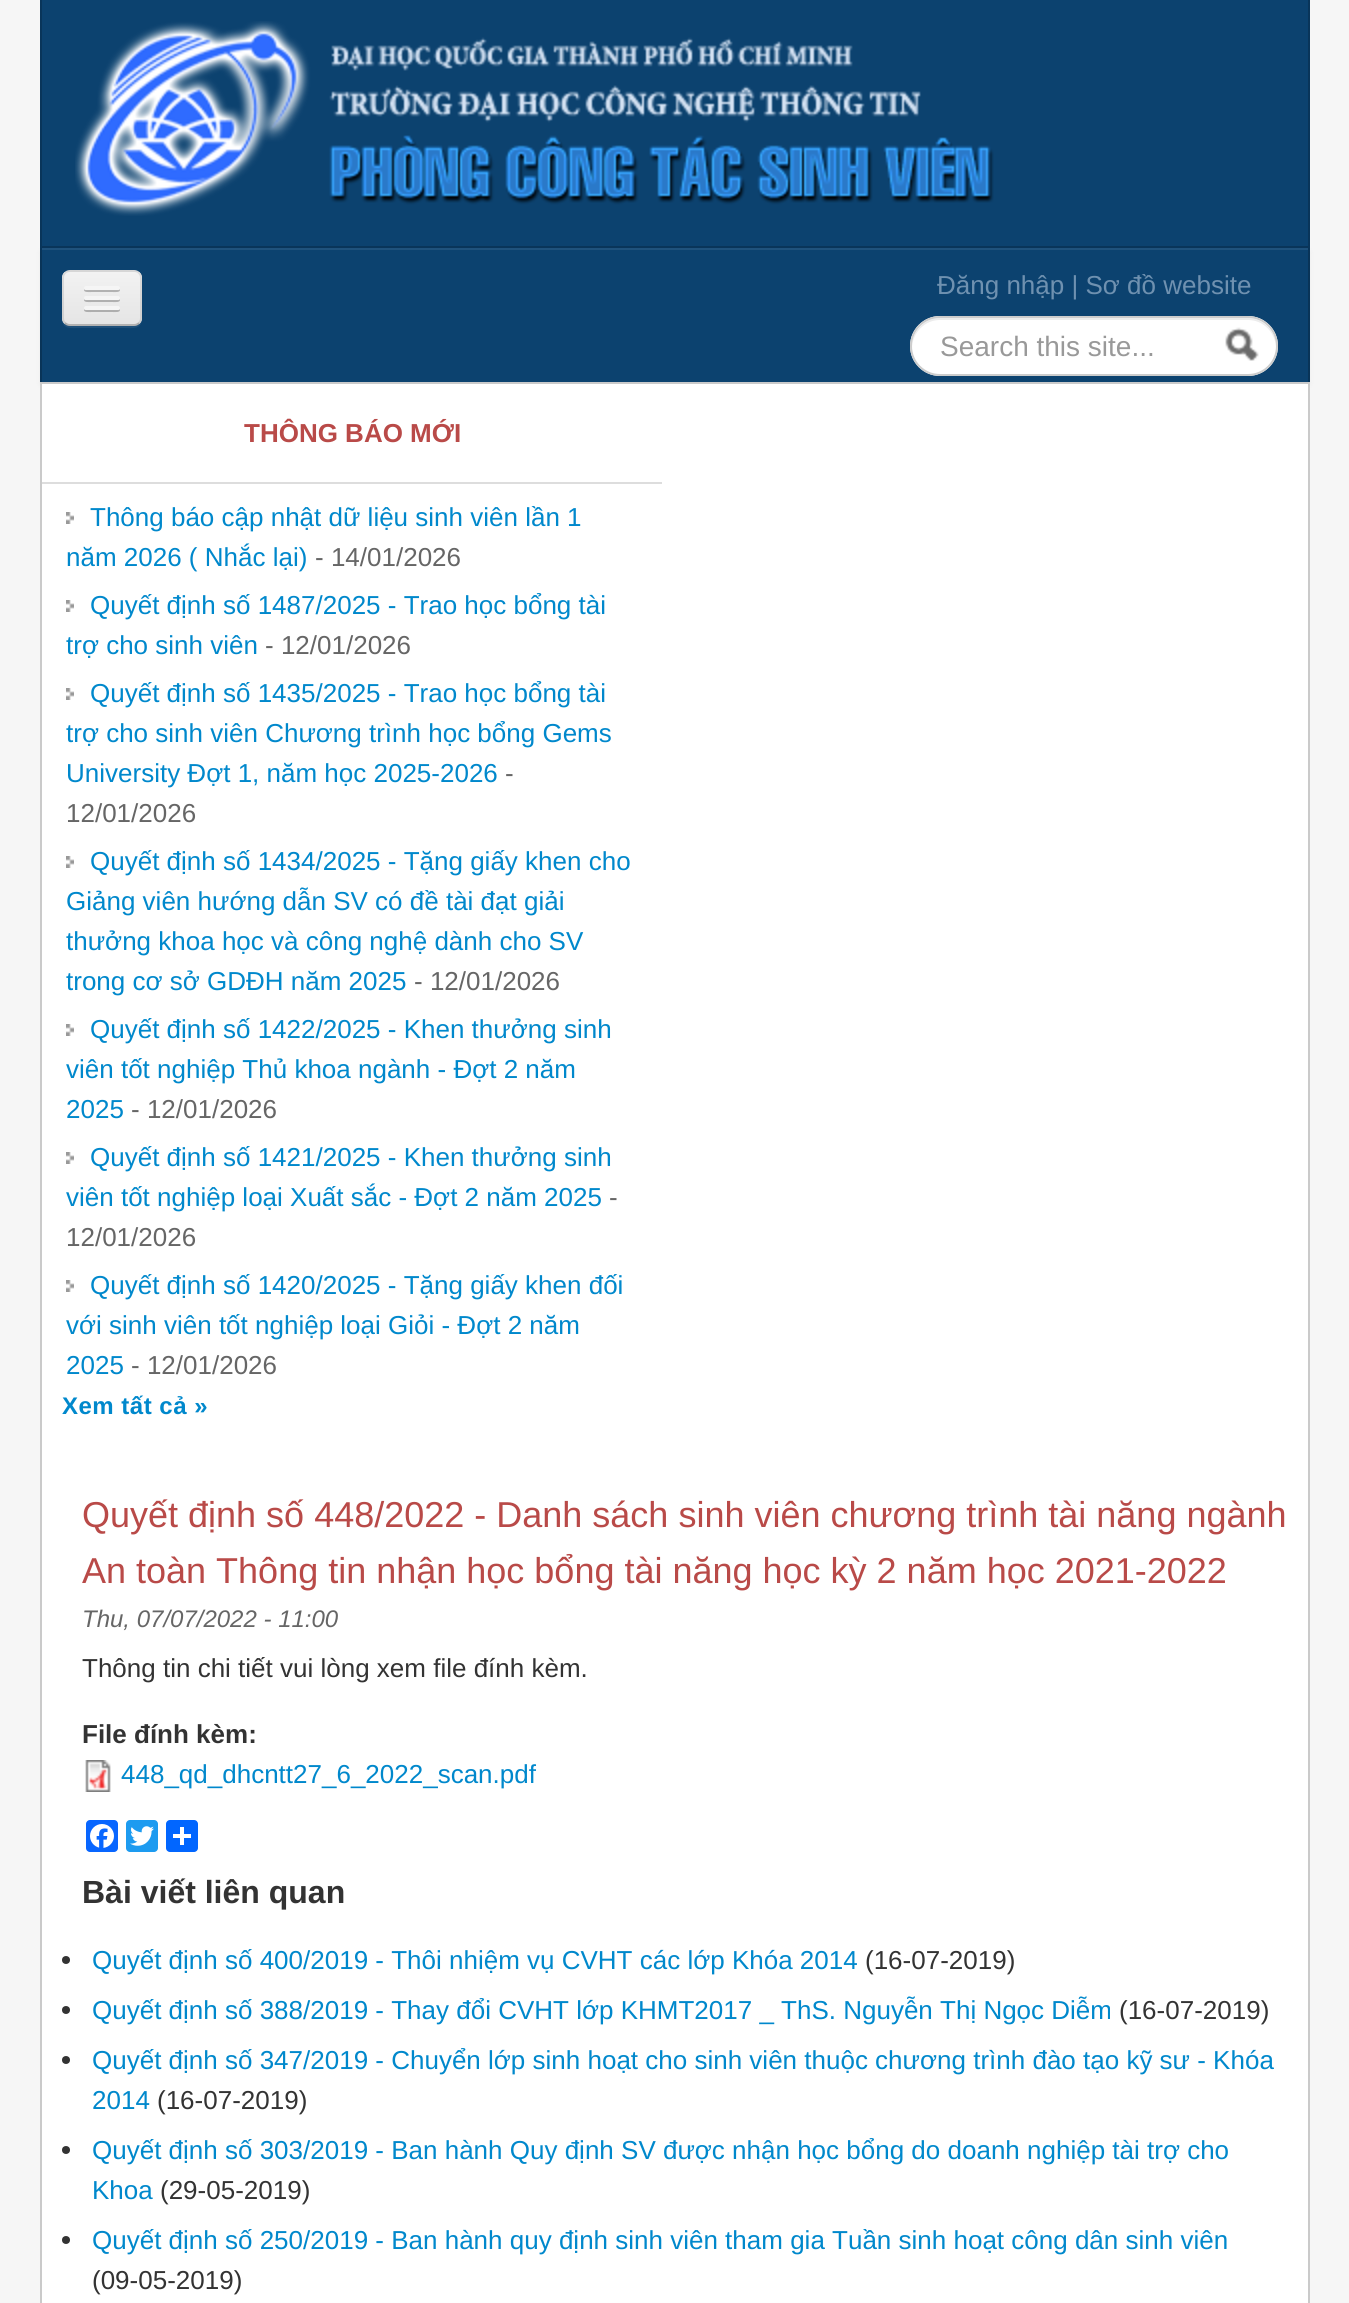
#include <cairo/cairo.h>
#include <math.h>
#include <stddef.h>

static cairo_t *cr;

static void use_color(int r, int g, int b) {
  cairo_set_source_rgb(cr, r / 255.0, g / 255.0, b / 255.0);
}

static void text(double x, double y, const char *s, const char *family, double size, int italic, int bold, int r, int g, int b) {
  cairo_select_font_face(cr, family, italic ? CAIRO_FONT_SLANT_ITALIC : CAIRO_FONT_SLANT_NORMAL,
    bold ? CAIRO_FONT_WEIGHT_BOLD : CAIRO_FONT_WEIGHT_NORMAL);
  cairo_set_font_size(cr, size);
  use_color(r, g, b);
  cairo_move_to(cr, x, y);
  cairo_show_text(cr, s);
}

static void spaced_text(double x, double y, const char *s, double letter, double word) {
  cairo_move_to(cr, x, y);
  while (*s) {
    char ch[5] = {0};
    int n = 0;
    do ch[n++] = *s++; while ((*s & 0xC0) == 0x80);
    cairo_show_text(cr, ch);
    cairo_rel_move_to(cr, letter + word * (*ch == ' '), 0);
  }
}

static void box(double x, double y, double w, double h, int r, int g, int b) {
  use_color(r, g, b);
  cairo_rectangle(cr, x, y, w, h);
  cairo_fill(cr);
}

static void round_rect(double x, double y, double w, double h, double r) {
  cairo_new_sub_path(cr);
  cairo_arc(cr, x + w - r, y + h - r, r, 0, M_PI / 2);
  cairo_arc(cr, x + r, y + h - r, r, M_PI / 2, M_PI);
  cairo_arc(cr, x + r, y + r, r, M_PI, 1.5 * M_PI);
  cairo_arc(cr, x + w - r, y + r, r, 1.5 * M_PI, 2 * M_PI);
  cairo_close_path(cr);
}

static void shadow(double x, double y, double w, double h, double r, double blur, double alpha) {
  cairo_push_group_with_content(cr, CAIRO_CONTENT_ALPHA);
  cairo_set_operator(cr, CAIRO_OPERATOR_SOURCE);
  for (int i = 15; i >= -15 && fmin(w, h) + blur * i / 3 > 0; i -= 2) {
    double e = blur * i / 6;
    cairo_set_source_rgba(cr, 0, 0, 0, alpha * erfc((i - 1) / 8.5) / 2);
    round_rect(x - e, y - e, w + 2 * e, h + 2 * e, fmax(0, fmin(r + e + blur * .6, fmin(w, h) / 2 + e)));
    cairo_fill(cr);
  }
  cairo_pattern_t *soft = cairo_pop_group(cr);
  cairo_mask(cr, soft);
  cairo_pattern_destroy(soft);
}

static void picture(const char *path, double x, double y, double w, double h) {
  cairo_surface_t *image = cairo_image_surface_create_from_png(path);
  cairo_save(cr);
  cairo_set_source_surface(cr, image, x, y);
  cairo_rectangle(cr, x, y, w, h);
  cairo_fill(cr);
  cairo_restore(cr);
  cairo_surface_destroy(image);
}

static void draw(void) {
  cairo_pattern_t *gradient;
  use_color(246, 246, 246);
  cairo_paint(cr);
  box(42, 0, 1266, 246, 12, 66, 111);
  box(1308, 0, 2, 248, 9, 53, 90);
  box(40, 246, 1270, 2, 9, 53, 90);
  box(40, 0, 2, 248, 9, 53, 90);
  picture("img_01.png", 75, 21, 919, 195);
  box(42, 250, 1266, 132, 12, 66, 111);
  box(40, 248, 1270, 2, 31, 83, 126);
  box(1308, 248, 2, 134, 9, 53, 90);
  box(40, 248, 2, 134, 9, 53, 90);
  cairo_save(cr);
  cairo_set_fill_rule(cr, CAIRO_FILL_RULE_EVEN_ODD);
  cairo_new_path(cr);
  cairo_move_to(cr, 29, 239);
  cairo_line_to(cr, 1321, 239);
  cairo_line_to(cr, 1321, 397);
  cairo_line_to(cr, 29, 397);
  cairo_close_path(cr);
  cairo_move_to(cr, 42, 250);
  cairo_line_to(cr, 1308, 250);
  cairo_line_to(cr, 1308, 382);
  cairo_line_to(cr, 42, 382);
  cairo_close_path(cr);
  cairo_clip(cr);
  use_color(0, 0, 0);
  shadow(42, 252, 1266, 132, 0, 4, 0.07);
  cairo_restore(cr);
  use_color(30, 80, 122);
  cairo_new_path(cr);
  cairo_move_to(cr, 62, 318);
  cairo_curve_to(cr, 62, 330, 71, 328, 81, 328);
  cairo_line_to(cr, 123, 328);
  cairo_curve_to(cr, 133, 328, 142, 330, 142, 318);
  cairo_curve_to(cr, 142, 322, 138, 326, 134, 326);
  cairo_line_to(cr, 70, 326);
  cairo_curve_to(cr, 66, 326, 62, 322, 62, 318);
  cairo_close_path(cr);
  cairo_fill(cr);
  use_color(237, 237, 237);
  round_rect(62, 270, 80, 56, 8);
  cairo_fill(cr);
  cairo_save(cr);
  round_rect(62, 270, 80, 56, 8);
  cairo_clip(cr);
  gradient = cairo_pattern_create_linear(102, 272, 102, 324);
  cairo_pattern_add_color_stop_rgba(gradient, 0, 0.949, 0.949, 0.949, 1);
  cairo_pattern_add_color_stop_rgba(gradient, 1, 0.898, 0.898, 0.898, 1);
  cairo_set_source(cr, gradient);
  cairo_pattern_destroy(gradient);
  cairo_rectangle(cr, 62, 272, 80, 52);
  cairo_fill(cr);
  cairo_restore(cr);
  cairo_new_path(cr);
  cairo_move_to(cr, 139, 323);
  cairo_curve_to(cr, 137.5, 324.5, 136, 325, 134, 325);
  cairo_line_to(cr, 70, 325);
  cairo_curve_to(cr, 68, 325, 66.5, 324.5, 65, 323);
  cairo_set_source_rgba(cr, 0, 0, 0, 0.25);
  cairo_stroke(cr);
  cairo_new_path(cr);
  cairo_move_to(cr, 65, 323);
  cairo_curve_to(cr, 63.5, 321.5, 63, 320, 63, 318);
  cairo_line_to(cr, 63, 278);
  cairo_curve_to(cr, 63, 276, 63.5, 274.5, 65, 273);
  cairo_curve_to(cr, 66.5, 271.5, 68, 271, 70, 271);
  cairo_line_to(cr, 134, 271);
  cairo_curve_to(cr, 136, 271, 137.5, 271.5, 139, 273);
  cairo_curve_to(cr, 140.5, 274.5, 141, 276, 141, 278);
  cairo_line_to(cr, 141, 318);
  cairo_curve_to(cr, 141, 320, 140.5, 321.5, 139, 323);
  cairo_set_source_rgba(cr, 0, 0, 0, 0.1);
  cairo_stroke(cr);
  use_color(178, 178, 178);
  cairo_new_path(cr);
  cairo_move_to(cr, 84.5, 289);
  cairo_curve_to(cr, 82, 293, 91, 292, 91.5, 292);
  cairo_line_to(cr, 112.5, 292);
  cairo_curve_to(cr, 113, 292, 122, 293, 119.5, 289);
  cairo_curve_to(cr, 119.5, 289.5, 118.5, 290, 118, 290);
  cairo_line_to(cr, 86, 290);
  cairo_curve_to(cr, 85.5, 290, 84.5, 289.5, 84.5, 289);
  cairo_close_path(cr);
  cairo_fill(cr);
  use_color(245, 245, 245);
  round_rect(84, 286, 36, 4, 2);
  cairo_fill(cr);
  use_color(176, 176, 176);
  cairo_new_path(cr);
  cairo_move_to(cr, 84.5, 299);
  cairo_curve_to(cr, 82, 303, 91, 302, 91.5, 302);
  cairo_line_to(cr, 112.5, 302);
  cairo_curve_to(cr, 113, 302, 122, 303, 119.5, 299);
  cairo_curve_to(cr, 119.5, 299.5, 118.5, 300, 118, 300);
  cairo_line_to(cr, 86, 300);
  cairo_curve_to(cr, 85.5, 300, 84.5, 299.5, 84.5, 299);
  cairo_close_path(cr);
  cairo_fill(cr);
  use_color(245, 245, 245);
  round_rect(84, 296, 36, 4, 2);
  cairo_fill(cr);
  use_color(174, 174, 174);
  cairo_new_path(cr);
  cairo_move_to(cr, 84.5, 309);
  cairo_curve_to(cr, 82, 313, 91, 312, 91.5, 312);
  cairo_line_to(cr, 112.5, 312);
  cairo_curve_to(cr, 113, 312, 122, 313, 119.5, 309);
  cairo_curve_to(cr, 119.5, 309.5, 118.5, 310, 118, 310);
  cairo_line_to(cr, 86, 310);
  cairo_curve_to(cr, 85.5, 310, 84.5, 309.5, 84.5, 309);
  cairo_close_path(cr);
  cairo_fill(cr);
  use_color(245, 245, 245);
  round_rect(84, 306, 36, 4, 2);
  cairo_fill(cr);
  use_color(255, 255, 255);
  round_rect(910, 316, 368, 60, 30);
  cairo_fill(cr);
  use_color(236, 236, 236);
  cairo_new_path(cr);
  cairo_move_to(cr, 940, 320);
  cairo_line_to(cr, 1248, 320);
  cairo_curve_to(cr, 1263, 320, 1275, 332, 1276, 347);
  cairo_line_to(cr, 1276, 346);
  cairo_curve_to(cr, 1276, 331, 1263, 318, 1248, 318);
  cairo_line_to(cr, 940, 318);
  cairo_curve_to(cr, 925, 318, 912, 331, 912, 346);
  cairo_line_to(cr, 912, 347);
  cairo_curve_to(cr, 913, 332, 925, 320, 940, 320);
  cairo_close_path(cr);
  cairo_fill(cr);
  round_rect(911, 317, 366, 58, 29);
  use_color(204, 204, 204);
  cairo_stroke(cr);
  picture("img_02.png", 1225, 327, 34, 34);
  box(42, 384, 1266, 1919, 255, 255, 255);
  box(40, 382, 1270, 2, 202, 202, 202);
  box(1308, 382, 2, 1921, 202, 202, 202);
  box(40, 382, 2, 1921, 202, 202, 202);
  box(42, 482, 620, 2, 221, 221, 221);
  picture("img_03.png", 66, 512, 8, 12);
  picture("img_03.png", 66, 600, 8, 12);
  picture("img_03.png", 66, 688, 8, 12);
  picture("img_03.png", 66, 856, 8, 12);
  picture("img_03.png", 66, 1024, 8, 12);
  picture("img_03.png", 66, 1152, 8, 12);
  picture("img_03.png", 66, 1280, 8, 12);
  picture("img_04.png", 85, 1760, 26, 32);
  use_color(8, 102, 255);
  round_rect(86, 1820, 32, 32, 4);
  cairo_fill(cr);
  picture("img_05.png", 90, 1824, 24, 24);
  use_color(29, 155, 240);
  round_rect(126, 1820, 32, 32, 4);
  cairo_fill(cr);
  picture("img_06.png", 130, 1826, 24, 20);
  use_color(1, 102, 255);
  round_rect(166, 1820, 32, 32, 4);
  cairo_fill(cr);
  box(180, 1827, 4, 18, 255, 255, 255);
  box(173, 1834, 18, 4, 255, 255, 255);
  use_color(51, 51, 51);
  cairo_arc(cr, 66, 1960, 4, 0, 2 * M_PI);
  cairo_fill(cr);
  cairo_arc(cr, 66, 2010, 4, 0, 2 * M_PI);
  cairo_fill(cr);
  cairo_arc(cr, 66, 2060, 4, 0, 2 * M_PI);
  cairo_fill(cr);
  cairo_arc(cr, 66, 2150, 4, 0, 2 * M_PI);
  cairo_fill(cr);
  cairo_arc(cr, 66, 2240, 4, 0, 2 * M_PI);
  cairo_fill(cr);
  text(937, 294, "Đăng nhập | Sơ đồ website", "Liberation Sans", 26, 0, 0, 111, 145, 176);
  text(940, 356, "Search this site...", "Liberation Sans", 28, 0, 0, 153, 153, 153);
  text(244, 442, "THÔNG BÁO MỚI", "Liberation Sans", 26, 0, 1, 185, 74, 72);
  text(90, 526, "Thông báo cập nhật dữ liệu sinh viên lần 1", "Liberation Sans", 26, 0, 0, 0, 136, 204);
  text(66, 566, "năm 2026 ( Nhắc lại)", "Liberation Sans", 26, 0, 0, 0, 136, 204);
  text(315, 566, "- 14/01/2026", "Liberation Sans", 26, 0, 0, 102, 102, 102);
  text(90, 614, "Quyết định số 1487/2025 - Trao học bổng tài", "Liberation Sans", 26, 0, 0, 0, 136, 204);
  text(66, 654, "trợ cho sinh viên", "Liberation Sans", 26, 0, 0, 0, 136, 204);
  text(265, 654, "- 12/01/2026", "Liberation Sans", 26, 0, 0, 102, 102, 102);
  text(90, 702, "Quyết định số 1435/2025 - Trao học bổng tài", "Liberation Sans", 26, 0, 0, 0, 136, 204);
  text(66, 742, "trợ cho sinh viên Chương trình học bổng Gems", "Liberation Sans", 26, 0, 0, 0, 136, 204);
  text(66, 782, "University Đợt 1, năm học 2025-2026", "Liberation Sans", 26, 0, 0, 0, 136, 204);
  text(505, 782, "-", "Liberation Sans", 26, 0, 0, 102, 102, 102);
  text(66, 822, "12/01/2026", "Liberation Sans", 26, 0, 0, 102, 102, 102);
  text(90, 870, "Quyết định số 1434/2025 - Tặng giấy khen cho", "Liberation Sans", 26, 0, 0, 0, 136, 204);
  text(66, 910, "Giảng viên hướng dẫn SV có đề tài đạt giải", "Liberation Sans", 26, 0, 0, 0, 136, 204);
  text(66, 950, "thưởng khoa học và công nghệ dành cho SV", "Liberation Sans", 26, 0, 0, 0, 136, 204);
  text(66, 990, "trong cơ sở GDĐH năm 2025", "Liberation Sans", 26, 0, 0, 0, 136, 204);
  text(414, 990, "- 12/01/2026", "Liberation Sans", 26, 0, 0, 102, 102, 102);
  text(90, 1038, "Quyết định số 1422/2025 - Khen thưởng sinh", "Liberation Sans", 26, 0, 0, 0, 136, 204);
  text(66, 1078, "viên tốt nghiệp Thủ khoa ngành - Đợt 2 năm", "Liberation Sans", 26, 0, 0, 0, 136, 204);
  text(66, 1118, "2025", "Liberation Sans", 26, 0, 0, 0, 136, 204);
  text(131, 1118, "- 12/01/2026", "Liberation Sans", 26, 0, 0, 102, 102, 102);
  text(90, 1166, "Quyết định số 1421/2025 - Khen thưởng sinh", "Liberation Sans", 26, 0, 0, 0, 136, 204);
  text(66, 1206, "viên tốt nghiệp loại Xuất sắc - Đợt 2 năm 2025", "Liberation Sans", 26, 0, 0, 0, 136, 204);
  text(609, 1206, "-", "Liberation Sans", 26, 0, 0, 102, 102, 102);
  text(66, 1246, "12/01/2026", "Liberation Sans", 26, 0, 0, 102, 102, 102);
  text(90, 1294, "Quyết định số 1420/2025 - Tặng giấy khen đối", "Liberation Sans", 26, 0, 0, 0, 136, 204);
  text(66, 1334, "với sinh viên tốt nghiệp loại Giỏi - Đợt 2 năm", "Liberation Sans", 26, 0, 0, 0, 136, 204);
  text(66, 1374, "2025", "Liberation Sans", 26, 0, 0, 0, 136, 204);
  text(131, 1374, "- 12/01/2026", "Liberation Sans", 26, 0, 0, 102, 102, 102);
  cairo_select_font_face(cr, "Liberation Sans", CAIRO_FONT_SLANT_NORMAL, CAIRO_FONT_WEIGHT_BOLD);
  cairo_set_font_size(cr, 24);
  use_color(0, 136, 204);
  spaced_text(62, 1414, "Xem tất cả »", 0.5, 0);
  text(82, 1527, "Quyết định số 448/2022 - Danh sách sinh viên chương trình tài năng ngành", "Liberation Sans", 36, 0, 0, 185, 74, 72);
  text(82, 1583, "An toàn Thông tin nhận học bổng tài năng học kỳ 2 năm học 2021-2022", "Liberation Sans", 36, 0, 0, 185, 74, 72);
  text(82, 1627, "Thu, 07/07/2022 - 11:00", "Liberation Sans", 24, 1, 0, 102, 102, 102);
  text(82, 1677, "Thông tin chi tiết vui lòng xem file đính kèm.", "Liberation Sans", 26, 0, 0, 51, 51, 51);
  text(82, 1743, "File đính kèm:", "Liberation Sans", 26, 0, 1, 51, 51, 51);
  text(121, 1783, "448_qd_dhcntt27_6_2022_scan.pdf", "Liberation Sans", 26, 0, 0, 0, 136, 204);
  text(82, 1903, "Bài viết liên quan", "Liberation Sans", 32, 0, 1, 51, 51, 51);
  text(92, 1969, "Quyết định số 400/2019 - Thôi nhiệm vụ CVHT các lớp Khóa 2014", "Liberation Sans", 26, 0, 0, 0, 136, 204);
  text(865, 1969, "(16-07-2019)", "Liberation Sans", 26, 0, 0, 51, 51, 51);
  text(92, 2019, "Quyết định số 388/2019 - Thay đổi CVHT lớp KHMT2017 _ ThS. Nguyễn Thị Ngọc Diễm", "Liberation Sans", 26, 0, 0, 0, 136, 204);
  text(1119, 2019, "(16-07-2019)", "Liberation Sans", 26, 0, 0, 51, 51, 51);
  text(92, 2069, "Quyết định số 347/2019 - Chuyển lớp sinh hoạt cho sinh viên thuộc chương trình đào tạo kỹ sư - Khóa", "Liberation Sans", 26, 0, 0, 0, 136, 204);
  text(92, 2109, "2014", "Liberation Sans", 26, 0, 0, 0, 136, 204);
  text(157, 2109, "(16-07-2019)", "Liberation Sans", 26, 0, 0, 51, 51, 51);
  text(92, 2159, "Quyết định số 303/2019 - Ban hành Quy định SV được nhận học bổng do doanh nghiệp tài trợ cho", "Liberation Sans", 26, 0, 0, 0, 136, 204);
  text(92, 2199, "Khoa", "Liberation Sans", 26, 0, 0, 0, 136, 204);
  text(160, 2199, "(29-05-2019)", "Liberation Sans", 26, 0, 0, 51, 51, 51);
  text(92, 2249, "Quyết định số 250/2019 - Ban hành quy định sinh viên tham gia Tuần sinh hoạt công dân sinh viên", "Liberation Sans", 26, 0, 0, 0, 136, 204);
  text(92, 2289, "(09-05-2019)", "Liberation Sans", 26, 0, 0, 51, 51, 51);
}

int main(void) {
  cairo_surface_t *surface = cairo_image_surface_create(CAIRO_FORMAT_RGB24, 1349, 2303);
  cr = cairo_create(surface);
  cairo_font_options_t *options = cairo_font_options_create();
  cairo_font_options_set_hint_metrics(options, CAIRO_HINT_METRICS_OFF);
  cairo_font_options_set_hint_style(options, CAIRO_HINT_STYLE_NONE);
  cairo_set_font_options(cr, options);
  cairo_set_miter_limit(cr, 4);
  draw();
  cairo_surface_write_to_png(surface, "out.png");
  cairo_font_options_destroy(options);
  cairo_destroy(cr);
  cairo_surface_destroy(surface);
  return 0;
}
